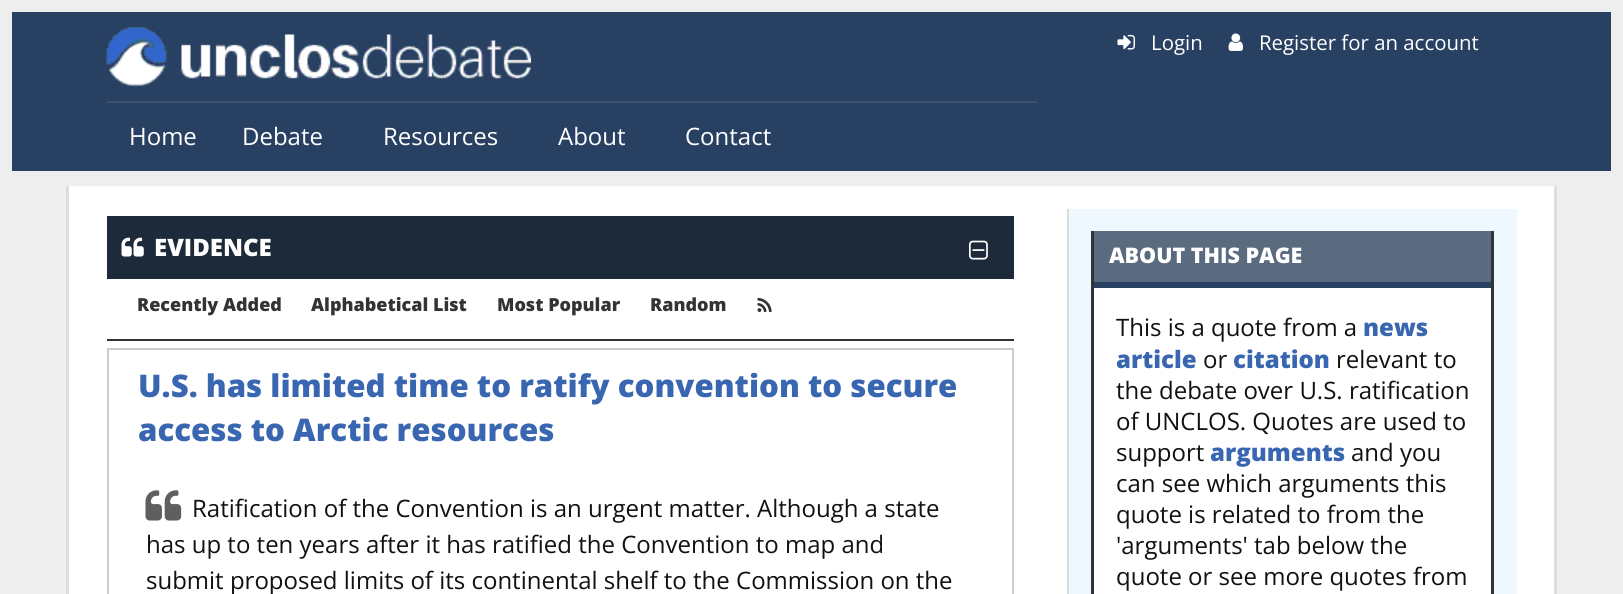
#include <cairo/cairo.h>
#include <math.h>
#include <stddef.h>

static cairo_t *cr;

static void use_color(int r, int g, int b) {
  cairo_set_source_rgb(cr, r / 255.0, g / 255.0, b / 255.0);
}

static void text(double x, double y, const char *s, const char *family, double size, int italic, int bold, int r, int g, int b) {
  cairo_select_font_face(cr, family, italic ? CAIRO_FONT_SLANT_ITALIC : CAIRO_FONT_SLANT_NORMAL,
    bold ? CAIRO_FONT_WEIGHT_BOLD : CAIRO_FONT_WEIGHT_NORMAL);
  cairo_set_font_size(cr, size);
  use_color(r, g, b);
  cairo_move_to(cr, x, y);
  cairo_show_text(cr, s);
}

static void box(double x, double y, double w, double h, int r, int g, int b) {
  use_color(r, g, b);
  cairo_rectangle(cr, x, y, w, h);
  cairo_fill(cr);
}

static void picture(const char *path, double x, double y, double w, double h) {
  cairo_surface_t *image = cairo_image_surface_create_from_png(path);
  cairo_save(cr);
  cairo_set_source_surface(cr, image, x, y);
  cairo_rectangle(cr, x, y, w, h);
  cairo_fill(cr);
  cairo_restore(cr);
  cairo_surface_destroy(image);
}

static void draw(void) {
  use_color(238, 238, 238);
  cairo_paint(cr);
  box(12, 12, 1599, 159, 40, 64, 98);
  picture("img_01.png", 1117, 34, 18, 16);
  picture("img_02.png", 1228, 33, 16, 18);
  picture("img_03.png", 106, 27, 425, 59);
  box(107, 101, 930, 2, 58, 81, 114);
  box(69, 186, 1485, 408, 255, 255, 255);
  box(1554, 186, 3, 408, 221, 221, 221);
  box(66, 186, 3, 408, 221, 221, 221);
  box(107, 216, 907, 63, 29, 42, 58);
  picture("img_04.png", 121, 237, 23, 20);
  picture("img_05.png", 969, 240, 19, 20);
  box(107, 339, 907, 2, 51, 51, 51);
  picture("img_06.png", 757, 297, 15, 15);
  cairo_rectangle(cr, 108, 349, 905, 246);
  use_color(204, 204, 204);
  cairo_stroke(cr);
  picture("img_07.png", 145, 490, 37, 31);
  box(1069, 209, 448, 385, 240, 248, 255);
  box(1067, 209, 2, 385, 221, 221, 221);
  box(1491, 231, 3, 363, 51, 51, 51);
  box(1091, 231, 3, 363, 51, 51, 51);
  box(1094, 288, 397, 306, 255, 255, 255);
  box(1094, 231, 397, 51, 90, 106, 127);
  box(1094, 282, 397, 6, 40, 64, 98);
  text(1151, 50, "Login", "Open Sans", 20.4, 0, 0, 255, 255, 255);
  text(1259, 50, "Register for an account", "Open Sans", 20.4, 0, 0, 255, 255, 255);
  text(129, 145, "Home", "Open Sans", 24, 0, 0, 255, 255, 255);
  text(242, 145, "Debate", "Open Sans", 24, 0, 0, 255, 255, 255);
  text(383, 145, "Resources", "Open Sans", 24, 0, 0, 255, 255, 255);
  text(558, 145, "About", "Open Sans", 24, 0, 0, 255, 255, 255);
  text(685, 145, "Contact", "Open Sans", 24, 0, 0, 255, 255, 255);
  text(154, 256, "EVIDENCE", "Open Sans ExtraBold", 24, 0, 0, 255, 255, 255);
  text(137, 311, "Recently Added", "Open Sans ExtraBold", 18, 0, 0, 51, 51, 51);
  text(311, 311, "Alphabetical List", "Open Sans ExtraBold", 18, 0, 0, 51, 51, 51);
  text(497, 311, "Most Popular", "Open Sans ExtraBold", 18, 0, 0, 51, 51, 51);
  text(650, 311, "Random", "Open Sans ExtraBold", 18, 0, 0, 51, 51, 51);
  text(138, 397, "U.S. has limited time to ratify convention to secure", "Open Sans ExtraBold", 31.2, 0, 0, 57, 102, 177);
  text(138, 441, "access to Arctic resources", "Open Sans ExtraBold", 31.2, 0, 0, 57, 102, 177);
  text(192, 517, "Ratification of the Convention is an urgent matter. Although a state", "Open Sans", 24, 0, 0, 17, 17, 17);
  text(146, 553, "has up to ten years after it has ratified the Convention to map and", "Open Sans", 24, 0, 0, 17, 17, 17);
  text(146, 589, "submit proposed limits of its continental shelf to the Commission on the", "Open Sans", 24, 0, 0, 17, 17, 17);
  text(1109, 263, "ABOUT THIS PAGE", "Open Sans ExtraBold", 21.5, 0, 0, 255, 255, 255);
  text(1116, 336, "This is a quote from a", "Open Sans", 24, 0, 0, 17, 17, 17);
  text(1363, 336, "news", "Open Sans ExtraBold", 24, 0, 0, 57, 102, 177);
  text(1116, 368, "article", "Open Sans ExtraBold", 24, 0, 0, 57, 102, 177);
  text(1203, 368, "or", "Open Sans", 24, 0, 0, 17, 17, 17);
  text(1233, 368, "citation", "Open Sans ExtraBold", 24, 0, 0, 57, 102, 177);
  text(1336, 368, "relevant to", "Open Sans", 24, 0, 0, 17, 17, 17);
  text(1116, 399, "the debate over U.S. ratification", "Open Sans", 24, 0, 0, 17, 17, 17);
  text(1116, 430, "of UNCLOS. Quotes are used to", "Open Sans", 24, 0, 0, 17, 17, 17);
  text(1116, 461, "support", "Open Sans", 24, 0, 0, 17, 17, 17);
  text(1210, 461, "arguments", "Open Sans ExtraBold", 24, 0, 0, 57, 102, 177);
  text(1351, 461, "and you", "Open Sans", 24, 0, 0, 17, 17, 17);
  text(1116, 492, "can see which arguments this", "Open Sans", 24, 0, 0, 17, 17, 17);
  text(1116, 523, "quote is related to from the", "Open Sans", 24, 0, 0, 17, 17, 17);
  text(1116, 554, "'arguments' tab below the", "Open Sans", 24, 0, 0, 17, 17, 17);
  text(1116, 585, "quote or see more quotes from", "Open Sans", 24, 0, 0, 17, 17, 17);
}

int main(void) {
  cairo_surface_t *surface = cairo_image_surface_create(CAIRO_FORMAT_RGB24, 1623, 594);
  cr = cairo_create(surface);
  cairo_font_options_t *options = cairo_font_options_create();
  cairo_font_options_set_hint_metrics(options, CAIRO_HINT_METRICS_OFF);
  cairo_font_options_set_hint_style(options, CAIRO_HINT_STYLE_NONE);
  cairo_set_font_options(cr, options);
  cairo_set_miter_limit(cr, 4);
  draw();
  cairo_surface_write_to_png(surface, "out.png");
  cairo_font_options_destroy(options);
  cairo_destroy(cr);
  cairo_surface_destroy(surface);
  return 0;
}
